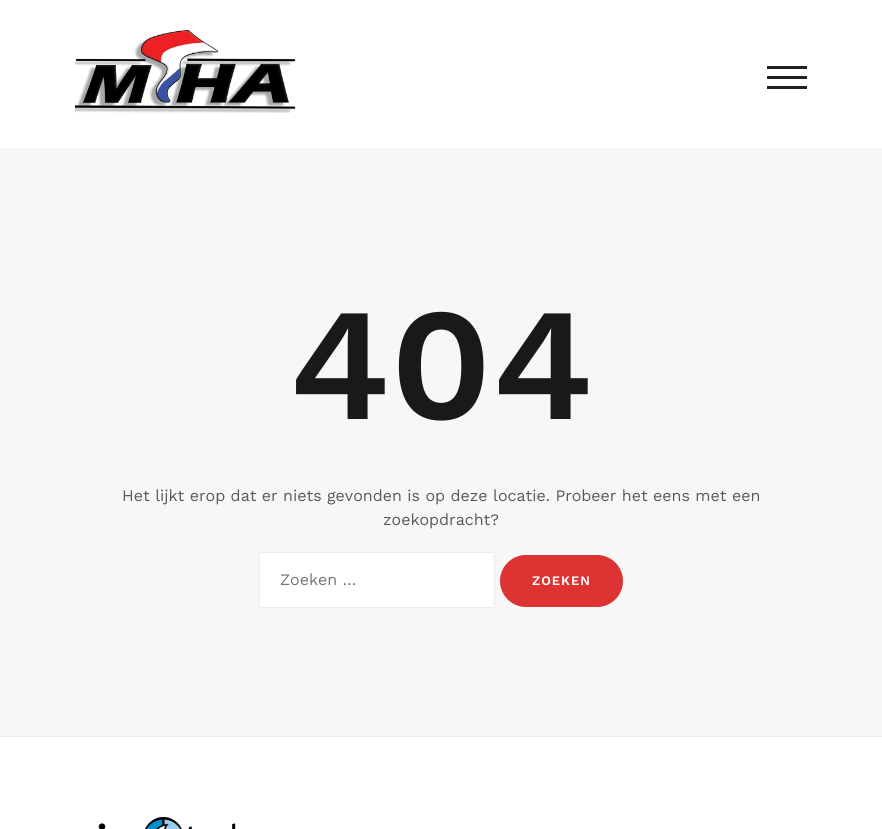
#include <cairo/cairo.h>
#include <math.h>
#include <stddef.h>

static cairo_t *cr;

static void use_color(int r, int g, int b) {
  cairo_set_source_rgb(cr, r / 255.0, g / 255.0, b / 255.0);
}

static void text(double x, double y, const char *s, const char *family, double size, int italic, int bold, int r, int g, int b) {
  cairo_select_font_face(cr, family, italic ? CAIRO_FONT_SLANT_ITALIC : CAIRO_FONT_SLANT_NORMAL,
    bold ? CAIRO_FONT_WEIGHT_BOLD : CAIRO_FONT_WEIGHT_NORMAL);
  cairo_set_font_size(cr, size);
  use_color(r, g, b);
  cairo_move_to(cr, x, y);
  cairo_show_text(cr, s);
}

static void spaced_text(double x, double y, const char *s, double letter, double word) {
  cairo_move_to(cr, x, y);
  while (*s) {
    char ch[5] = {0};
    int n = 0;
    do ch[n++] = *s++; while ((*s & 0xC0) == 0x80);
    cairo_show_text(cr, ch);
    cairo_rel_move_to(cr, letter + word * (*ch == ' '), 0);
  }
}

static void box(double x, double y, double w, double h, int r, int g, int b) {
  use_color(r, g, b);
  cairo_rectangle(cr, x, y, w, h);
  cairo_fill(cr);
}

static void round_rect(double x, double y, double w, double h, double r) {
  cairo_new_sub_path(cr);
  cairo_arc(cr, x + w - r, y + h - r, r, 0, M_PI / 2);
  cairo_arc(cr, x + r, y + h - r, r, M_PI / 2, M_PI);
  cairo_arc(cr, x + r, y + r, r, M_PI, 1.5 * M_PI);
  cairo_arc(cr, x + w - r, y + r, r, 1.5 * M_PI, 2 * M_PI);
  cairo_close_path(cr);
}

static void picture(const char *path, double x, double y, double w, double h) {
  cairo_surface_t *image = cairo_image_surface_create_from_png(path);
  cairo_save(cr);
  cairo_set_source_surface(cr, image, x, y);
  cairo_rectangle(cr, x, y, w, h);
  cairo_fill(cr);
  cairo_restore(cr);
  cairo_surface_destroy(image);
}

static void draw(void) {
  use_color(255, 255, 255);
  cairo_paint(cr);
  picture("img_01.png", 75, 30, 221, 83);
  box(767, 76, 40, 3, 33, 33, 33);
  box(767, 66, 40, 3, 33, 33, 33);
  box(767, 86, 40, 3, 33, 33, 33);
  box(0, 148, 882, 588, 247, 247, 247);
  use_color(255, 255, 255);
  cairo_rectangle(cr, 259.5, 552.5, 235, 55);
  cairo_fill_preserve(cr);
  use_color(235, 235, 235);
  cairo_set_line_width(cr, 1);
  cairo_stroke(cr);
  use_color(221, 51, 51);
  round_rect(501, 556, 121, 50, 25);
  cairo_fill_preserve(cr);
  cairo_set_line_width(cr, 2);
  cairo_stroke(cr);
  box(0, 736, 882, 1, 235, 235, 235);
  picture("img_02.png", 98, 817, 138, 12);
  text(289, 419, "404", "Work Sans SemiBold", 160, 0, 0, 25, 25, 25);
  text(122, 501, "Het lijkt erop dat er niets gevonden is op deze locatie. Probeer het eens met een", "Work Sans", 16, 0, 0, 89, 89, 89);
  text(383, 525, "zoekopdracht?", "Work Sans", 16, 0, 0, 89, 89, 89);
  text(280, 585, "Zoeken …", "Work Sans", 16, 0, 0, 117, 117, 117);
  cairo_select_font_face(cr, "Work Sans SemiBold", CAIRO_FONT_SLANT_NORMAL, CAIRO_FONT_WEIGHT_NORMAL);
  cairo_set_font_size(cr, 13);
  use_color(255, 255, 255);
  spaced_text(532, 585, "ZOEKEN", 1, 0);
}

int main(void) {
  cairo_surface_t *surface = cairo_image_surface_create(CAIRO_FORMAT_RGB24, 882, 829);
  cr = cairo_create(surface);
  cairo_font_options_t *options = cairo_font_options_create();
  cairo_font_options_set_hint_metrics(options, CAIRO_HINT_METRICS_OFF);
  cairo_font_options_set_hint_style(options, CAIRO_HINT_STYLE_NONE);
  cairo_set_font_options(cr, options);
  cairo_set_miter_limit(cr, 4);
  draw();
  cairo_surface_write_to_png(surface, "out.png");
  cairo_font_options_destroy(options);
  cairo_destroy(cr);
  cairo_surface_destroy(surface);
  return 0;
}
